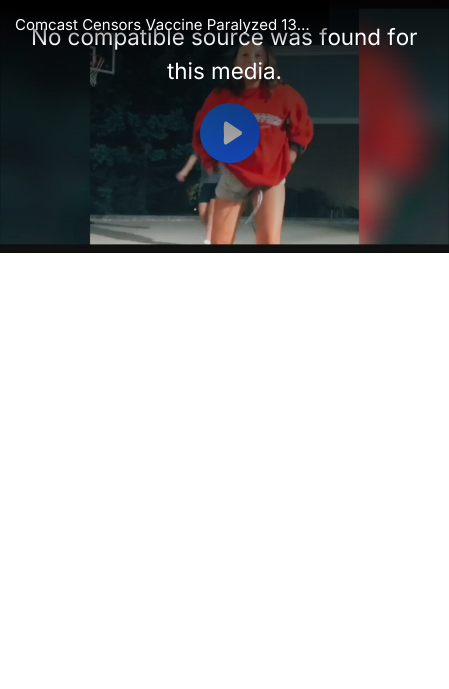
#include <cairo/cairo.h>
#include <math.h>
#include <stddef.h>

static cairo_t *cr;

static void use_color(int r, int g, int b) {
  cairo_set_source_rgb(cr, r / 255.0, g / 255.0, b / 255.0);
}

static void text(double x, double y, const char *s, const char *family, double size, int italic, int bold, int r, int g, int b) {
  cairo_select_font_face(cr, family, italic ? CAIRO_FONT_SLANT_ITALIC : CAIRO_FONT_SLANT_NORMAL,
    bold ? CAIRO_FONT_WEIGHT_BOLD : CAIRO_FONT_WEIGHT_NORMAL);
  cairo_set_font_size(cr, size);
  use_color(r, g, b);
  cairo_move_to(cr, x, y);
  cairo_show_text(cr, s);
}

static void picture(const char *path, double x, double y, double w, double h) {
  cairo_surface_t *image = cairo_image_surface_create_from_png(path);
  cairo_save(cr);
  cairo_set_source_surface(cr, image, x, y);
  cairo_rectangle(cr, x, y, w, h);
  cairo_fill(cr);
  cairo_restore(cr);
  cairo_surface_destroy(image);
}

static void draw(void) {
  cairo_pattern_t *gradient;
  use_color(255, 255, 255);
  cairo_paint(cr);
  picture("img_01.png", 0, 0, 449, 253);
  gradient = cairo_pattern_create_linear(205, 102, 241, 146);
  cairo_pattern_add_color_stop_rgba(gradient, 0, 0.102, 0.494, 0.98, 1);
  cairo_pattern_add_color_stop_rgba(gradient, 1, 0.11, 0.38, 0.976, 1);
  cairo_set_source(cr, gradient);
  cairo_pattern_destroy(gradient);
  cairo_arc(cr, 230, 133, 30, 0, 2 * M_PI);
  cairo_fill(cr);
  use_color(255, 255, 255);
  cairo_new_path(cr);
  cairo_move_to(cr, 227, 144);
  cairo_curve_to(cr, 222.5, 147, 224, 137.5, 224, 136);
  cairo_curve_to(cr, 224, 134, 223, 122.5, 225, 121.5);
  cairo_line_to(cr, 226.5, 121.5);
  cairo_line_to(cr, 241.5, 131.5);
  cairo_line_to(cr, 242, 133);
  cairo_line_to(cr, 241.5, 134.5);
  cairo_close_path(cr);
  cairo_fill(cr);
  gradient = cairo_pattern_create_linear(224, 0, 225, 253);
  cairo_pattern_add_color_stop_rgba(gradient, 0, 0, 0, 0, 0.8);
  cairo_pattern_add_color_stop_rgba(gradient, 1, 0, 0, 0, 0);
  cairo_set_source(cr, gradient);
  cairo_pattern_destroy(gradient);
  cairo_rectangle(cr, 0, 0, 449, 245);
  cairo_fill(cr);
  text(31, 45, "No compatible source was found for", "Inter", 22.4, 0, 0, 255, 255, 255);
  gradient = cairo_pattern_create_linear(165, 0, 165, 45);
  cairo_pattern_add_color_stop_rgba(gradient, 0.2, 0, 0, 0, 0.9);
  cairo_pattern_add_color_stop_rgba(gradient, 1, 0, 0, 0, 0);
  cairo_set_source(cr, gradient);
  cairo_pattern_destroy(gradient);
  cairo_rectangle(cr, 0, 0, 329, 44);
  cairo_fill(cr);
  text(15, 30, "Comcast Censors Vaccine Paralyzed 13…", "Inter", 15, 0, 0, 255, 255, 255);
  text(167, 79, "this media.", "Inter", 22.4, 0, 0, 255, 255, 255);
}

int main(void) {
  cairo_surface_t *surface = cairo_image_surface_create(CAIRO_FORMAT_RGB24, 449, 689);
  cr = cairo_create(surface);
  cairo_font_options_t *options = cairo_font_options_create();
  cairo_font_options_set_hint_metrics(options, CAIRO_HINT_METRICS_OFF);
  cairo_font_options_set_hint_style(options, CAIRO_HINT_STYLE_NONE);
  cairo_set_font_options(cr, options);
  cairo_set_miter_limit(cr, 4);
  draw();
  cairo_surface_write_to_png(surface, "out.png");
  cairo_font_options_destroy(options);
  cairo_destroy(cr);
  cairo_surface_destroy(surface);
  return 0;
}
